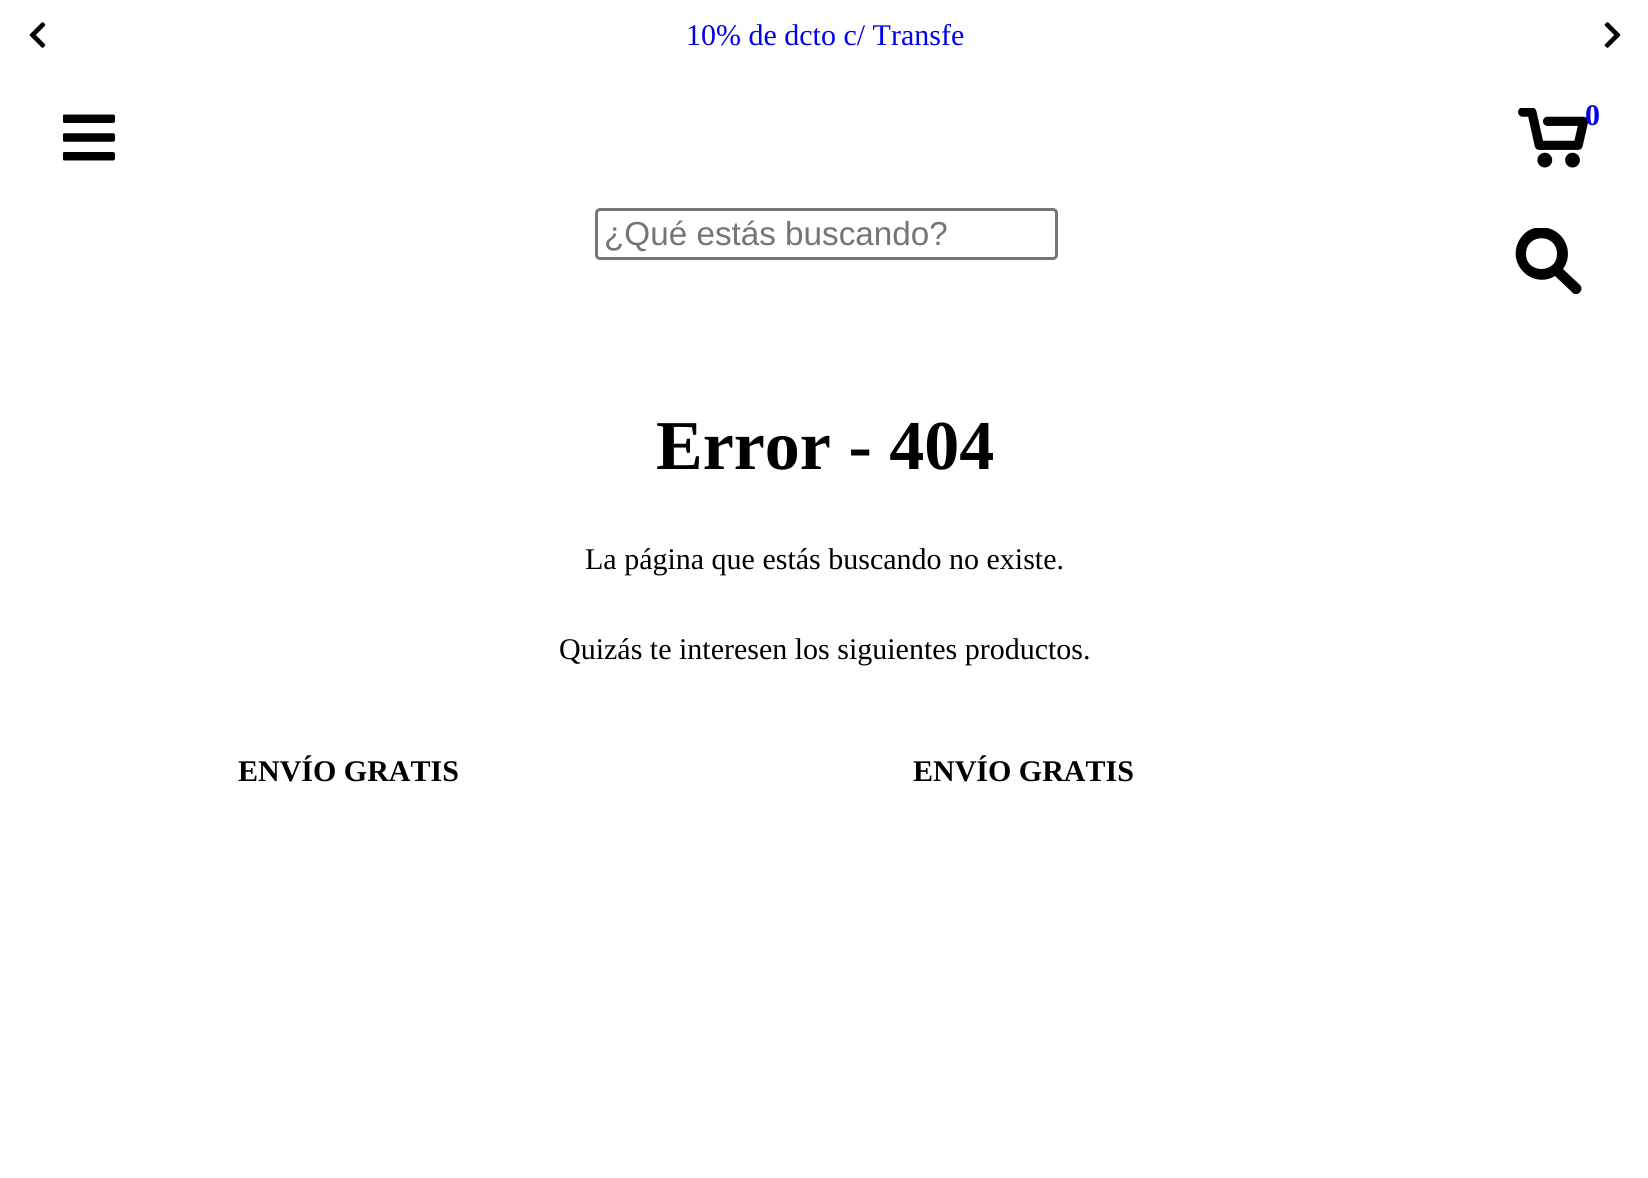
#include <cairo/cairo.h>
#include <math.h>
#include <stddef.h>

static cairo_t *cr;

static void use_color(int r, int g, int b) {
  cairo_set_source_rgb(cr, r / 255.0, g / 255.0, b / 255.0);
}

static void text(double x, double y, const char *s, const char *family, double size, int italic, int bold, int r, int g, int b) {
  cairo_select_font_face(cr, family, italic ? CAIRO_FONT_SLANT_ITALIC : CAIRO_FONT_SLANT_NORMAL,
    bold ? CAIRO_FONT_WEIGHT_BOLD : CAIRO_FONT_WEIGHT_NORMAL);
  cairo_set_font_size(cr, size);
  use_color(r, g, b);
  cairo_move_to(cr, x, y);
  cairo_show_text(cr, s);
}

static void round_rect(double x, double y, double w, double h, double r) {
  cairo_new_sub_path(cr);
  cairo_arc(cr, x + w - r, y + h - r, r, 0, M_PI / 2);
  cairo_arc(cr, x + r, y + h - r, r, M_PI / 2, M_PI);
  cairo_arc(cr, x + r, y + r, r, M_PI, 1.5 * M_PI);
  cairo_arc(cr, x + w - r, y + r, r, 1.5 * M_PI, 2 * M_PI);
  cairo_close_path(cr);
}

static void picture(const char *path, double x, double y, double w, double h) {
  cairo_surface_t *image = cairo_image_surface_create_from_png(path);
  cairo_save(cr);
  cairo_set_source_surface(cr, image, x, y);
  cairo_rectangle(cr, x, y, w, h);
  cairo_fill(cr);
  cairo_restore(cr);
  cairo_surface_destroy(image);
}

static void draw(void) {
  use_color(255, 255, 255);
  cairo_paint(cr);
  picture("img_01.png", 29, 22, 17, 26);
  picture("img_02.png", 1604, 22, 17, 26);
  picture("img_03.png", 63, 114, 52, 47);
  picture("img_04.png", 1518, 108, 71, 60);
  round_rect(596.5, 209.5, 460, 49, 3.5);
  use_color(118, 118, 118);
  cairo_set_line_width(cr, 3);
  cairo_stroke(cr);
  cairo_save(cr);
  cairo_rectangle(cr, 1515, 228, 67, 66);
  cairo_clip(cr);
  use_color(0, 0, 0);
  cairo_new_path(cr);
  cairo_move_to(cr, 1580, 285);
  cairo_line_to(cr, 1563, 269);
  cairo_curve_to(cr, 1571, 258, 1569, 243, 1559, 234);
  cairo_curve_to(cr, 1549, 225, 1533, 225, 1524, 234);
  cairo_curve_to(cr, 1514, 244, 1513, 259, 1521, 269);
  cairo_curve_to(cr, 1529, 280, 1544, 283, 1555, 276);
  cairo_line_to(cr, 1574, 294);
  cairo_curve_to(cr, 1579, 296, 1584, 289, 1580, 285);
  cairo_close_path(cr);
  cairo_move_to(cr, 1526, 254);
  cairo_curve_to(cr, 1526, 233, 1557, 233, 1557, 254);
  cairo_curve_to(cr, 1557, 274, 1526, 274, 1526, 254);
  cairo_close_path(cr);
  cairo_fill(cr);
  cairo_restore(cr);
  text(686, 45, "10% de dcto c/ Transfe", "Liberation Serif", 30, 0, 0, 0, 0, 238);
  text(1585, 125, "0", "Liberation Serif", 30, 0, 1, 0, 0, 238);
  text(604, 245, "¿Qué estás buscando?", "Liberation Sans", 33.25, 0, 0, 117, 117, 117);
  text(656, 469, "Error - 404", "Liberation Serif", 70, 0, 1, 0, 0, 0);
  text(585, 569, "La página que estás buscando no existe.", "Liberation Serif", 30, 0, 0, 0, 0, 0);
  text(559, 659, "Quizás te interesen los siguientes productos.", "Liberation Serif", 30, 0, 0, 0, 0, 0);
  text(238, 781, "ENVÍO GRATIS", "Liberation Serif", 30, 0, 1, 0, 0, 0);
  text(913, 781, "ENVÍO GRATIS", "Liberation Serif", 30, 0, 1, 0, 0, 0);
}

int main(void) {
  cairo_surface_t *surface = cairo_image_surface_create(CAIRO_FORMAT_RGB24, 1648, 1178);
  cr = cairo_create(surface);
  cairo_font_options_t *options = cairo_font_options_create();
  cairo_font_options_set_hint_metrics(options, CAIRO_HINT_METRICS_OFF);
  cairo_font_options_set_hint_style(options, CAIRO_HINT_STYLE_NONE);
  cairo_set_font_options(cr, options);
  cairo_set_miter_limit(cr, 4);
  draw();
  cairo_surface_write_to_png(surface, "out.png");
  cairo_font_options_destroy(options);
  cairo_destroy(cr);
  cairo_surface_destroy(surface);
  return 0;
}
